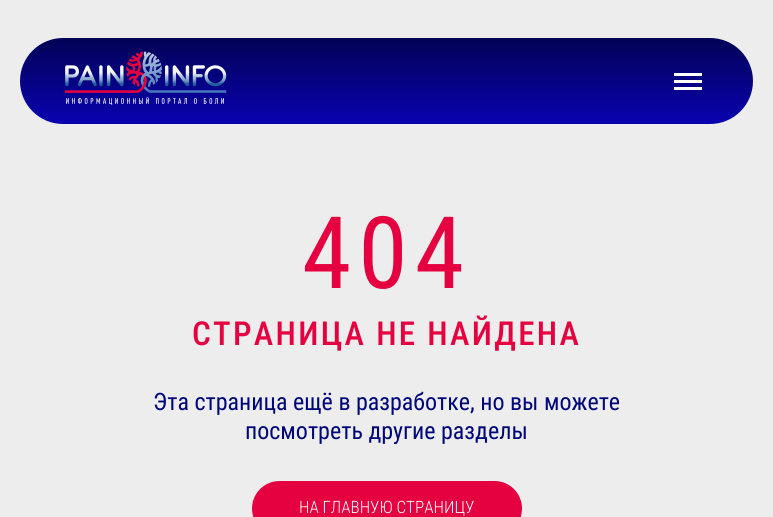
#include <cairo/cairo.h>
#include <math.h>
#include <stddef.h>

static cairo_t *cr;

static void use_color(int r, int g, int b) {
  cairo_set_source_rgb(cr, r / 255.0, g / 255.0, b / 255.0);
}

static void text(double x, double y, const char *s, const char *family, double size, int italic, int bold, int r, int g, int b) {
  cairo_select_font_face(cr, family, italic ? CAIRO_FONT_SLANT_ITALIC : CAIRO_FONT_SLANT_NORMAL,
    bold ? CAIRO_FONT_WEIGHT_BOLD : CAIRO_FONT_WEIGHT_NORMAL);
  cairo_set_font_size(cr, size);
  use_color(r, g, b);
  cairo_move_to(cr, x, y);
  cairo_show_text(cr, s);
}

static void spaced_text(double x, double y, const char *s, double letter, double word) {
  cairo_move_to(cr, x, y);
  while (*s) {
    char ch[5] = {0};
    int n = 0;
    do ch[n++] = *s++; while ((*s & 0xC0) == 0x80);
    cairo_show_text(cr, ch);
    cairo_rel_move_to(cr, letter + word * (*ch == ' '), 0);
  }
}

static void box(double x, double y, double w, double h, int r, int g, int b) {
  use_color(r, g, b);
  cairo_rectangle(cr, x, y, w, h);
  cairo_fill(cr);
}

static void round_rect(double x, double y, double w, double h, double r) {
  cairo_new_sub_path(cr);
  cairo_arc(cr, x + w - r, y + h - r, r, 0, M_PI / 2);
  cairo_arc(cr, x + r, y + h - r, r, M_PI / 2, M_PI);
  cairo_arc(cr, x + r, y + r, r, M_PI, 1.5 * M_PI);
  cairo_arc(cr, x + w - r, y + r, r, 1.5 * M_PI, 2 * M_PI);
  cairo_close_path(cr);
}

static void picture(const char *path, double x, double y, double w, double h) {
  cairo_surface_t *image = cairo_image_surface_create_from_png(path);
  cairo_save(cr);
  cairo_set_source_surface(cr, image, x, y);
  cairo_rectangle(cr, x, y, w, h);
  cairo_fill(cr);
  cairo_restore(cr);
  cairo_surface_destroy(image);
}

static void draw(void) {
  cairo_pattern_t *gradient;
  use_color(237, 237, 237);
  cairo_paint(cr);
  gradient = cairo_pattern_create_linear(387, 38, 387, 124);
  cairo_pattern_add_color_stop_rgba(gradient, 0, 0.008, 0.008, 0.337, 1);
  cairo_pattern_add_color_stop_rgba(gradient, 1, 0.039, 0.008, 0.69, 1);
  cairo_set_source(cr, gradient);
  cairo_pattern_destroy(gradient);
  round_rect(20, 38, 733, 86, 43);
  cairo_fill(cr);
  picture("img_01.png", 64, 51, 163, 54);
  box(674, 73, 28, 3, 255, 255, 255);
  box(674, 80, 28, 3, 255, 255, 255);
  box(674, 87, 28, 3, 255, 255, 255);
  use_color(229, 0, 64);
  round_rect(252, 481, 270, 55, 27.5);
  cairo_fill(cr);
  cairo_select_font_face(cr, "Roboto Condensed", CAIRO_FONT_SLANT_NORMAL, CAIRO_FONT_WEIGHT_NORMAL);
  cairo_set_font_size(cr, 100);
  spaced_text(302, 288, "404", 7, 0);
  cairo_select_font_face(cr, "Roboto Condensed Medium", CAIRO_FONT_SLANT_NORMAL, CAIRO_FONT_WEIGHT_NORMAL);
  cairo_set_font_size(cr, 33);
  spaced_text(192, 345, "СТРАНИЦА НЕ НАЙДЕНА", 2.3, 0);
  text(153, 410, "Эта страница ещё в разработке, но вы можете", "Roboto Condensed", 24, 0, 0, 0, 6, 121);
  text(245, 439, "посмотреть другие разделы", "Roboto Condensed", 24, 0, 0, 0, 6, 121);
  text(299, 513, "НА ГЛАВНУЮ СТРАНИЦУ", "Roboto Condensed Light", 17, 0, 0, 255, 255, 255);
}

int main(void) {
  cairo_surface_t *surface = cairo_image_surface_create(CAIRO_FORMAT_RGB24, 773, 517);
  cr = cairo_create(surface);
  cairo_font_options_t *options = cairo_font_options_create();
  cairo_font_options_set_hint_metrics(options, CAIRO_HINT_METRICS_OFF);
  cairo_font_options_set_hint_style(options, CAIRO_HINT_STYLE_NONE);
  cairo_set_font_options(cr, options);
  cairo_set_miter_limit(cr, 4);
  draw();
  cairo_surface_write_to_png(surface, "out.png");
  cairo_font_options_destroy(options);
  cairo_destroy(cr);
  cairo_surface_destroy(surface);
  return 0;
}
